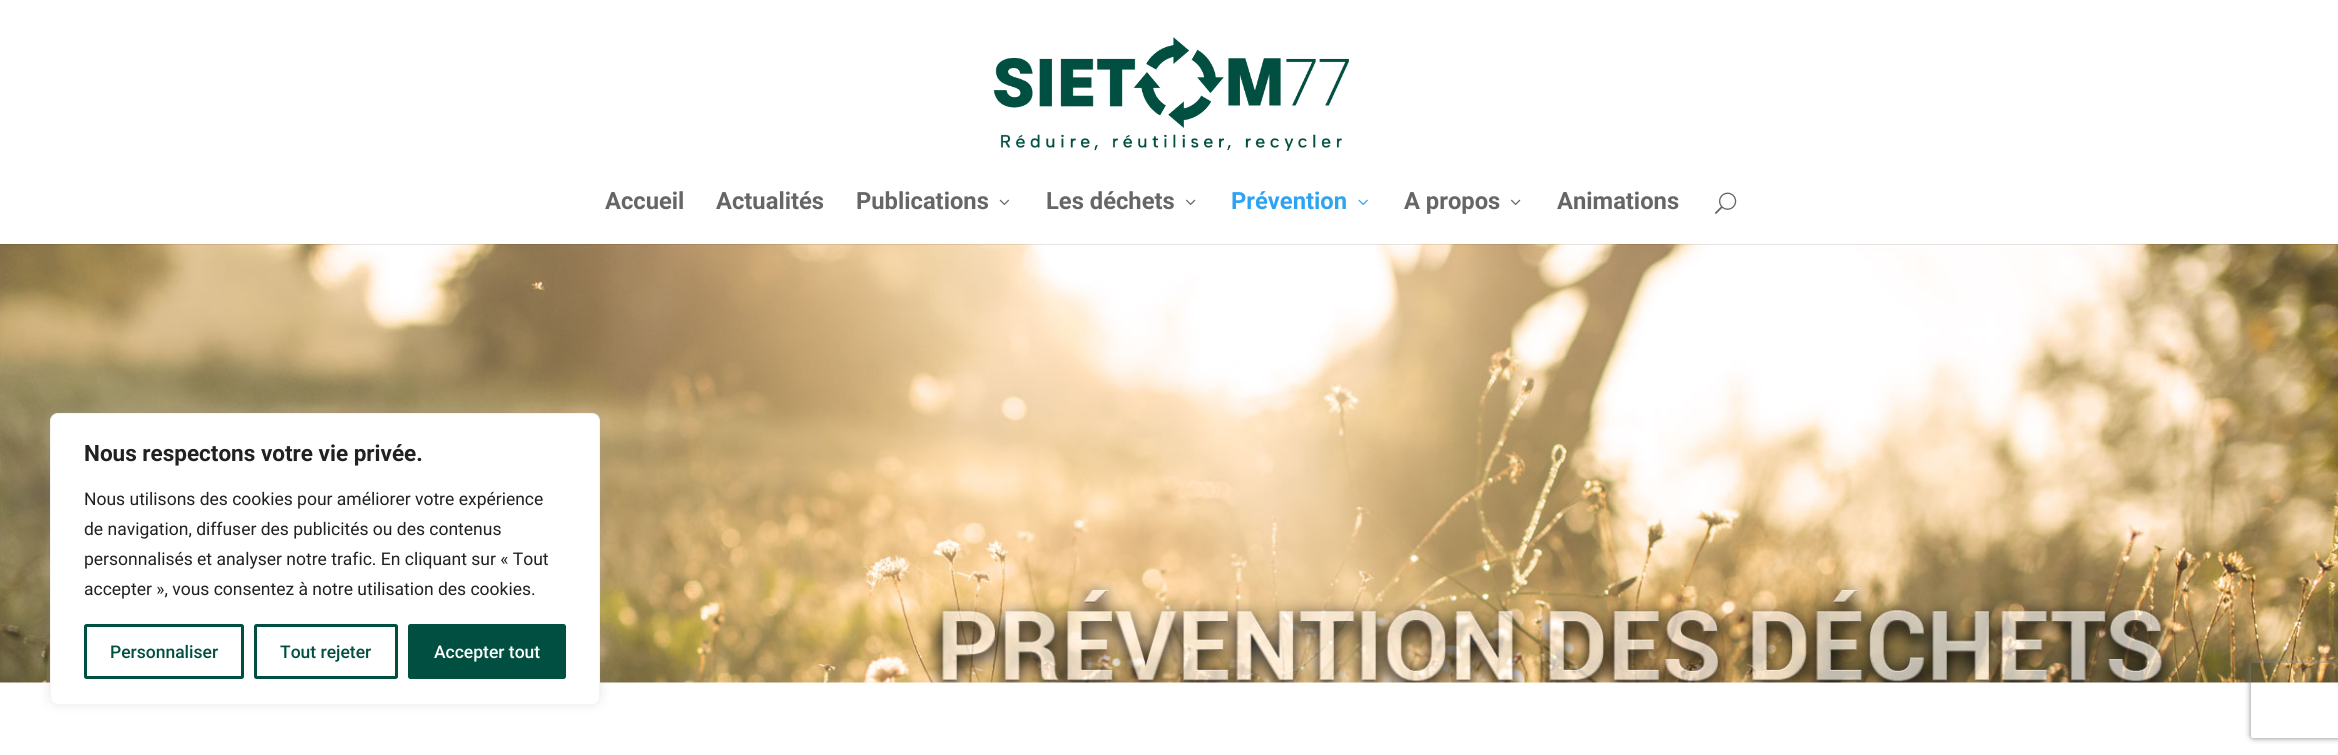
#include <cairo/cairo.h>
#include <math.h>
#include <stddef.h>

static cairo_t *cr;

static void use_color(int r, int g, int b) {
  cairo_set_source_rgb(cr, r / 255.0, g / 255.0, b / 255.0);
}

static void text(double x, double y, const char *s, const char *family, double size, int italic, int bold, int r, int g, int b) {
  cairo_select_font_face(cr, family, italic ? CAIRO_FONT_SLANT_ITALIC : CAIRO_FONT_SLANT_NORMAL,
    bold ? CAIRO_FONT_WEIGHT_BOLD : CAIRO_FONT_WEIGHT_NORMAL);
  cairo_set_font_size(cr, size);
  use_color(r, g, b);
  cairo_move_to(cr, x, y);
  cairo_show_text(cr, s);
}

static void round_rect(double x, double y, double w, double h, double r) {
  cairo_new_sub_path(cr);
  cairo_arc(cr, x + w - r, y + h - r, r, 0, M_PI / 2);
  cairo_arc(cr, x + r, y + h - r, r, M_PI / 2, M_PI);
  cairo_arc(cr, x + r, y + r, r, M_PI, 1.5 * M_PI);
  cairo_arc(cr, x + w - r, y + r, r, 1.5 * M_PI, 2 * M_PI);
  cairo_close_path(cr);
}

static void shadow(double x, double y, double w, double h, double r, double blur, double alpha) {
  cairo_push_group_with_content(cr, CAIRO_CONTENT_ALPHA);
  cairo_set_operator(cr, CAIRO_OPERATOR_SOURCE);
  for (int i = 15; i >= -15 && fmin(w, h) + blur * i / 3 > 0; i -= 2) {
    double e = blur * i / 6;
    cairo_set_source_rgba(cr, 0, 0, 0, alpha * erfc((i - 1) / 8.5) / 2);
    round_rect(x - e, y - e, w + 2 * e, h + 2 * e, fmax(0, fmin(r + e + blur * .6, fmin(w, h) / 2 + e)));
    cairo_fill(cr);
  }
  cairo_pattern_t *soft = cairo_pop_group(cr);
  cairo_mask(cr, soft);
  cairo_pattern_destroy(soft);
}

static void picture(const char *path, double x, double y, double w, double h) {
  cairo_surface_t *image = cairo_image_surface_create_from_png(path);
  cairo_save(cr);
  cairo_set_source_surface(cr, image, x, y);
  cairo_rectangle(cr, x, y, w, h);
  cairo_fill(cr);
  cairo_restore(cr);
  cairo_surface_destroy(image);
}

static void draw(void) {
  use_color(255, 255, 255);
  cairo_paint(cr);
  picture("img_06.png", 0, 244, 2338, 439);
  cairo_set_source_rgba(cr, 0, 0, 0, 0.1);
  cairo_new_path(cr);
  cairo_move_to(cr, 0, 244);
  cairo_line_to(cr, 0, 245);
  cairo_line_to(cr, 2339, 245);
  cairo_line_to(cr, 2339, 1);
  cairo_line_to(cr, 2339, 244);
  cairo_close_path(cr);
  cairo_fill(cr);
  picture("img_01.png", 993, 37, 356, 114);
  picture("img_02.png", 999, 199, 10, 6);
  picture("img_03.png", 1186, 199, 10, 6);
  picture("img_04.png", 1358, 199, 10, 6);
  picture("img_03.png", 1511, 199, 10, 6);
  picture("img_05.png", 1715, 192, 22, 22);
  use_color(172, 171, 171);
  shadow(50, 411, 550, 293, 8, 6, 0.3);
  use_color(255, 255, 255);
  round_rect(50.5, 413.5, 549, 291, 7.5);
  cairo_fill_preserve(cr);
  use_color(244, 244, 244);
  cairo_set_line_width(cr, 1);
  cairo_stroke(cr);
  round_rect(85.5, 625.5, 157, 52, 1);
  use_color(0, 79, 65);
  cairo_set_line_width(cr, 3);
  cairo_stroke(cr);
  round_rect(255.5, 625.5, 141, 52, 1);
  cairo_stroke(cr);
  round_rect(409.5, 625.5, 155, 52, 1);
  cairo_fill_preserve(cr);
  cairo_stroke(cr);
  cairo_save(cr);
  cairo_set_fill_rule(cr, CAIRO_FILL_RULE_EVEN_ODD);
  cairo_new_path(cr);
  cairo_move_to(cr, 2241, 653);
  cairo_line_to(cr, 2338, 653);
  cairo_line_to(cr, 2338, 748);
  cairo_line_to(cr, 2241, 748);
  cairo_close_path(cr);
  cairo_move_to(cr, 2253.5, 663);
  cairo_line_to(cr, 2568.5, 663);
  cairo_curve_to(cr, 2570, 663, 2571, 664, 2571, 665.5);
  cairo_line_to(cr, 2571, 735.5);
  cairo_curve_to(cr, 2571, 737, 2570, 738, 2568.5, 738);
  cairo_line_to(cr, 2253.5, 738);
  cairo_curve_to(cr, 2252, 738, 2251, 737, 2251, 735.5);
  cairo_line_to(cr, 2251, 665.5);
  cairo_curve_to(cr, 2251, 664, 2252, 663, 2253.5, 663);
  cairo_close_path(cr);
  cairo_clip(cr);
  use_color(128, 128, 128);
  shadow(2251, 663, 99, 75, 2.5, 3, 1);
  cairo_restore(cr);
  text(605, 209, "Accueil", "Roboto", 23.75, 0, 1, 102, 102, 102);
  text(716, 209, "Actualités", "Roboto", 23.75, 0, 1, 102, 102, 102);
  text(856, 209, "Publications", "Roboto", 23.75, 0, 1, 102, 102, 102);
  text(1046, 209, "Les déchets", "Roboto", 23.75, 0, 1, 102, 102, 102);
  text(1231, 209, "Prévention", "Roboto", 23.75, 0, 1, 46, 163, 242);
  text(1404, 209, "A propos", "Roboto", 23.75, 0, 1, 102, 102, 102);
  text(1557, 209, "Animations", "Roboto", 23.75, 0, 1, 102, 102, 102);
  text(84, 461, "Nous respectons votre vie privée.", "Roboto", 22.5, 0, 1, 33, 33, 33);
  text(84, 505, "Nous utilisons des cookies pour améliorer votre expérience", "Roboto", 17.5, 0, 0, 33, 33, 33);
  text(84, 535, "de navigation, diffuser des publicités ou des contenus", "Roboto", 17.5, 0, 0, 33, 33, 33);
  text(84, 565, "personnalisés et analyser notre trafic. En cliquant sur « Tout", "Roboto", 17.5, 0, 0, 33, 33, 33);
  text(84, 595, "accepter », vous consentez à notre utilisation des cookies.", "Roboto", 17.5, 0, 0, 33, 33, 33);
  text(110, 658, "Personnaliser", "Roboto Medium", 17.5, 0, 0, 0, 79, 65);
  text(280, 658, "Tout rejeter", "Roboto Medium", 17.5, 0, 0, 0, 79, 65);
  text(434, 658, "Accepter tout", "Roboto Medium", 17.5, 0, 0, 255, 255, 255);
}

int main(void) {
  cairo_surface_t *surface = cairo_image_surface_create(CAIRO_FORMAT_RGB24, 2338, 755);
  cr = cairo_create(surface);
  cairo_font_options_t *options = cairo_font_options_create();
  cairo_font_options_set_hint_metrics(options, CAIRO_HINT_METRICS_OFF);
  cairo_font_options_set_hint_style(options, CAIRO_HINT_STYLE_NONE);
  cairo_set_font_options(cr, options);
  cairo_set_miter_limit(cr, 4);
  draw();
  cairo_surface_write_to_png(surface, "out.png");
  cairo_font_options_destroy(options);
  cairo_destroy(cr);
  cairo_surface_destroy(surface);
  return 0;
}
